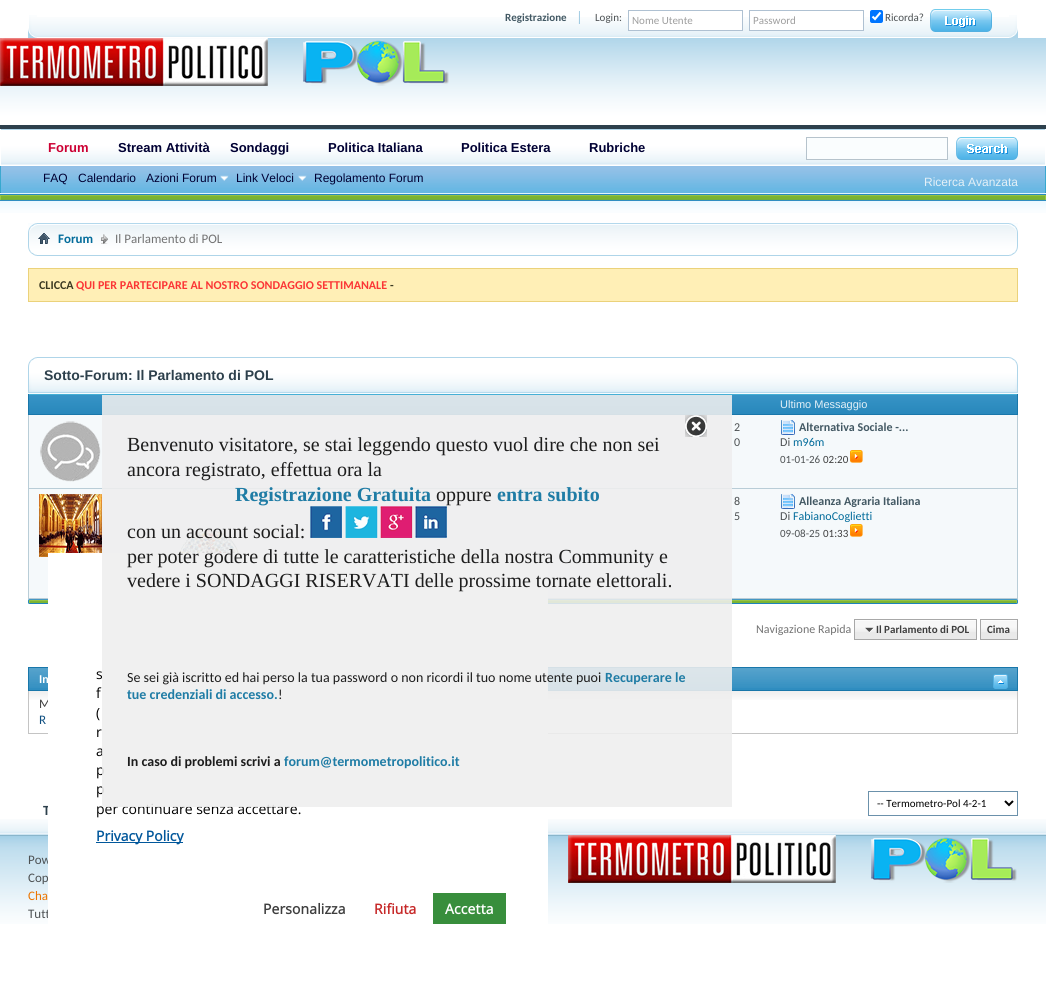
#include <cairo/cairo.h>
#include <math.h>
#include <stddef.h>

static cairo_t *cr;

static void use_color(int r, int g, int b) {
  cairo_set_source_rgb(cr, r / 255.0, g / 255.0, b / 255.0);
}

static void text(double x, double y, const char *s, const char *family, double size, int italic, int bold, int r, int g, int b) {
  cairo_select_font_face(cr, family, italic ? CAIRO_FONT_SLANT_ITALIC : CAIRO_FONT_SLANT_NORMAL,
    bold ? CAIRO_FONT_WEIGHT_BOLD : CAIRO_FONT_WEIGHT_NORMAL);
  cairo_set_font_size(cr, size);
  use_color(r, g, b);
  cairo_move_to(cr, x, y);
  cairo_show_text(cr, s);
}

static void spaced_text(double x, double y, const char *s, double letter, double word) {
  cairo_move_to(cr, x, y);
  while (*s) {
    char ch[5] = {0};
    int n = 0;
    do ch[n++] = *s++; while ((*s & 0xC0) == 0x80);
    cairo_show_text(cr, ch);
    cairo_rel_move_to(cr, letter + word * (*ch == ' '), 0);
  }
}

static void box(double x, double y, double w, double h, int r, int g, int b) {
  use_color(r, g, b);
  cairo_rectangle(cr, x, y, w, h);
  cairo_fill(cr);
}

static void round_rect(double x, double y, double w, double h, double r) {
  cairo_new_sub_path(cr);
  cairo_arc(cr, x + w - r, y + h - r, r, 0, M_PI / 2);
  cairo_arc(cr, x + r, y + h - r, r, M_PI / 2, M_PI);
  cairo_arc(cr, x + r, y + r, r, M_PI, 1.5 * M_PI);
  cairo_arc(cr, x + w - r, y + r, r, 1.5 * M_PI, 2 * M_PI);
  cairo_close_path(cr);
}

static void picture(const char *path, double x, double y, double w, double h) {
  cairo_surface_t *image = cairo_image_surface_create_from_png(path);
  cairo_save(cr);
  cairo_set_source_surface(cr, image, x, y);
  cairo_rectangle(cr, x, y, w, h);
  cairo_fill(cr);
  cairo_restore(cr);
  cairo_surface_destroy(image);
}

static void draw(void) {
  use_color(255, 255, 255);
  cairo_paint(cr);
  picture("img_01.png", 37, 17, 972, 20);
  picture("img_02.png", 28, 15, 9, 23);
  picture("img_03.png", 1009, 15, 9, 23);
  picture("img_04.png", 578, 11, 2, 13);
  box(629, 17, 113, 13, 255, 255, 255);
  cairo_rectangle(cr, 628.5, 10.5, 114, 20);
  use_color(175, 193, 210);
  cairo_set_line_width(cr, 1);
  cairo_stroke(cr);
  box(750, 17, 113, 13, 255, 255, 255);
  cairo_rectangle(cr, 749.5, 10.5, 114, 20);
  use_color(175, 193, 210);
  cairo_stroke(cr);
  use_color(0, 117, 255);
  round_rect(870, 10, 13, 13, 2);
  cairo_fill(cr);
  cairo_new_path(cr);
  cairo_move_to(cr, 872.5, 16.5);
  cairo_line_to(cr, 875, 19);
  cairo_line_to(cr, 880.5, 12.5);
  use_color(255, 255, 255);
  cairo_set_line_width(cr, 2.1);
  cairo_stroke(cr);
  picture("img_05.png", 930, 9, 62, 23);
  box(0, 125, 1046, 4, 45, 64, 76);
  picture("img_06.png", 0, 38, 1046, 87);
  picture("img_07.png", 0, 38, 449, 48);
  picture("img_08.png", 0, 129, 1046, 72);
  picture("img_09.png", 0, 129, 1, 71);
  picture("img_09.png", 1045, 129, 1, 71);
  picture("img_10.png", 28, 129, 990, 37);
  picture("img_11.png", 28, 129, 80, 36);
  picture("img_12.png", 108, 129, 112, 36);
  picture("img_13.png", 220, 129, 98, 36);
  picture("img_14.png", 318, 129, 133, 36);
  picture("img_15.png", 451, 129, 128, 36);
  picture("img_16.png", 579, 129, 95, 36);
  picture("img_17.png", 220, 175, 9, 6);
  picture("img_17.png", 298, 175, 9, 6);
  use_color(250, 253, 254);
  cairo_rectangle(cr, 806.5, 137.5, 141, 22);
  cairo_fill_preserve(cr);
  use_color(182, 195, 204);
  cairo_set_line_width(cr, 1);
  cairo_stroke(cr);
  picture("img_18.png", 956, 137, 62, 23);
  picture("img_21.png", 0, 201, 1046, 12);
  picture("img_22.png", 37, 223, 972, 33);
  picture("img_23.png", 28, 223, 9, 33);
  picture("img_24.png", 1009, 223, 9, 33);
  picture("img_25.png", 38, 233, 12, 11);
  picture("img_26.png", 101, 234, 7, 10);
  use_color(255, 239, 182);
  cairo_rectangle(cr, 28.5, 268.5, 989, 33);
  cairo_fill_preserve(cr);
  use_color(235, 210, 123);
  cairo_stroke(cr);
  picture("img_27.png", 28, 357, 990, 37);
  picture("img_28.png", 28, 357, 9, 35);
  picture("img_29.png", 1009, 357, 9, 35);
  picture("img_30.png", 29, 394, 988, 20);
  box(1017, 394, 1, 21, 25, 119, 170);
  box(28, 414, 990, 1, 25, 119, 170);
  box(28, 394, 1, 21, 25, 119, 170);
  box(29, 415, 988, 73, 245, 249, 251);
  box(1017, 415, 1, 184, 185, 205, 215);
  box(28, 488, 990, 1, 185, 205, 215);
  box(28, 415, 1, 74, 185, 205, 215);
  picture("img_31.png", 40, 421, 61, 61);
  picture("img_32.png", 781, 420, 14, 15);
  picture("img_33.png", 850, 450, 13, 13);
  box(29, 489, 988, 109, 245, 249, 251);
  box(28, 598, 990, 1, 185, 205, 215);
  box(28, 489, 1, 110, 185, 205, 215);
  picture("img_34.png", 39, 494, 63, 63);
  picture("img_35.png", 179, 529, 60, 24);
  picture("img_32.png", 781, 494, 14, 15);
  picture("img_33.png", 850, 524, 13, 13);
  picture("img_36.png", 30, 599, 986, 5);
  picture("img_37.png", 28, 599, 2, 5);
  picture("img_38.png", 1016, 599, 2, 5);
  box(855, 620, 121, 19, 233, 233, 233);
  picture("img_39.png", 855, 620, 121, 12);
  box(981, 620, 36, 19, 233, 233, 233);
  picture("img_40.png", 981, 620, 36, 12);
  cairo_rectangle(cr, 854.5, 619.5, 122, 20);
  use_color(168, 168, 168);
  cairo_stroke(cr);
  picture("img_41.png", 865, 627, 9, 6);
  cairo_rectangle(cr, 980.5, 619.5, 37, 20);
  cairo_stroke(cr);
  box(29, 668, 988, 22, 47, 141, 192);
  picture("img_42.png", 29, 668, 988, 20);
  cairo_rectangle(cr, 28.5, 667.5, 989, 23);
  use_color(25, 119, 170);
  cairo_stroke(cr);
  picture("img_43.png", 993, 674, 15, 15);
  picture("img_44.png", 29, 691, 988, 9);
  box(1017, 691, 1, 43, 196, 196, 196);
  box(28, 733, 990, 1, 196, 196, 196);
  box(28, 691, 1, 43, 196, 196, 196);
  picture("img_45.png", 0, 819, 1046, 16);
  cairo_rectangle(cr, 868.5, 791.5, 149, 24);
  use_color(107, 145, 171);
  cairo_stroke(cr);
  cairo_new_path(cr);
  cairo_move_to(cr, 1005, 801);
  cairo_line_to(cr, 1009, 805);
  cairo_line_to(cr, 1013, 801);
  use_color(0, 0, 0);
  cairo_set_line_width(cr, 2);
  cairo_stroke(cr);
  picture("img_46.png", 0, 835, 1046, 89);
  picture("img_47.png", 568, 835, 449, 48);
  text(505, 21, "Registrazione", "Carlito", 11, 0, 1, 66, 88, 99);
  text(595, 21, "Login:", "Carlito", 11, 0, 0, 77, 81, 83);
  text(632, 24, "Nome Utente", "Carlito", 11, 0, 0, 158, 158, 158);
  text(753, 24, "Password", "Carlito", 11, 0, 0, 158, 158, 158);
  text(885, 21, "Ricorda?", "Carlito", 11, 0, 0, 77, 81, 83);
  text(48, 152, "Forum", "Liberation Sans", 13, 0, 1, 204, 0, 51);
  text(118, 152, "Stream Attività", "Liberation Sans", 13, 0, 1, 0, 0, 51);
  text(230, 152, "Sondaggi", "Liberation Sans", 13, 0, 1, 0, 0, 51);
  text(328, 152, "Politica Italiana", "Liberation Sans", 13, 0, 1, 0, 0, 51);
  text(461, 152, "Politica Estera", "Liberation Sans", 13, 0, 1, 0, 0, 51);
  text(589, 152, "Rubriche", "Liberation Sans", 13, 0, 1, 0, 0, 51);
  text(43, 182, "FAQ", "Liberation Sans", 12, 0, 0, 0, 0, 51);
  text(78, 182, "Calendario", "Liberation Sans", 12, 0, 0, 0, 0, 51);
  text(146, 182, "Azioni Forum", "Liberation Sans", 12, 0, 0, 0, 0, 51);
  text(236, 182, "Link Veloci", "Liberation Sans", 12, 0, 0, 0, 0, 51);
  text(314, 182, "Regolamento Forum", "Liberation Sans", 12, 0, 0, 0, 0, 51);
  text(924, 186, "Ricerca Avanzata", "Liberation Sans", 12, 0, 0, 227, 240, 247);
  text(58, 243, "Forum", "Carlito", 13, 0, 1, 3, 108, 155);
  text(115, 243, "Il Parlamento di POL", "Carlito", 13, 0, 0, 115, 115, 115);
  text(39, 289, "CLICCA", "Carlito", 12, 0, 1, 60, 58, 34);
  text(76, 289, "QUI PER PARTECIPARE AL NOSTRO SONDAGGIO SETTIMANALE", "Carlito", 12, 0, 1, 251, 53, 53);
  text(390, 289, "-", "Carlito", 12, 0, 1, 60, 58, 34);
  text(44, 380, "Sotto-Forum: Il Parlamento di POL", "Liberation Sans", 14, 0, 1, 45, 64, 76);
  text(780, 408, "Ultimo Messaggio", "Liberation Sans", 11, 0, 0, 227, 240, 247);
  text(734, 431, "2", "Carlito", 12, 0, 0, 77, 81, 83);
  text(734, 446, "0", "Carlito", 12, 0, 0, 77, 81, 83);
  text(799, 431, "Alternativa Sociale -...", "Carlito", 12, 0, 1, 66, 88, 99);
  text(780, 446, "Di", "Carlito", 12, 0, 0, 77, 81, 83);
  text(793, 446, "m96m", "Carlito", 12, 0, 0, 3, 108, 155);
  text(780, 463, "01-01-26", "Carlito", 11, 0, 0, 77, 81, 83);
  text(823, 463, "02:20", "Carlito", 11, 0, 0, 62, 62, 62);
  text(734, 505, "8", "Carlito", 12, 0, 0, 77, 81, 83);
  text(734, 520, "5", "Carlito", 12, 0, 0, 77, 81, 83);
  text(799, 505, "Alleanza Agraria Italiana", "Carlito", 12, 0, 1, 66, 88, 99);
  text(780, 520, "Di", "Carlito", 12, 0, 0, 77, 81, 83);
  text(793, 520, "FabianoCoglietti", "Carlito", 12, 0, 0, 3, 108, 155);
  text(780, 537, "09-08-25", "Carlito", 11, 0, 0, 77, 81, 83);
  text(823, 537, "01:33", "Carlito", 11, 0, 0, 62, 62, 62);
  text(756, 633, "Navigazione Rapida", "Carlito", 12, 0, 0, 115, 115, 115);
  text(876, 633, "Il Parlamento di POL", "Carlito", 11, 0, 1, 62, 62, 62);
  text(987, 633, "Cima", "Carlito", 11, 0, 1, 62, 62, 62);
  text(39, 683, "In", "Carlito", 12, 0, 1, 255, 255, 255);
  text(39, 708, "M", "Carlito", 13, 0, 0, 62, 62, 62);
  text(39, 724, "R", "Carlito", 13, 0, 0, 15, 79, 129);
  text(877, 807, "-- Termometro-Pol 4-2-1", "Carlito", 11, 0, 0, 0, 0, 0);
  text(43, 815, "T", "Carlito", 14, 0, 1, 45, 64, 76);
  text(28, 864, "Pow", "Carlito", 13, 0, 0, 77, 81, 83);
  text(28, 882, "Cop", "Carlito", 13, 0, 0, 77, 81, 83);
  text(28, 900, "Cha", "Carlito", 13, 0, 0, 236, 117, 0);
  text(28, 918, "Tutt", "Carlito", 13, 0, 0, 77, 81, 83);
  box(48, 553, 500, 371, 255, 255, 255);
  text(96, 679, "s", "Open Sans", 14, 0, 0, 0, 0, 0);
  text(96, 698, "f", "Open Sans", 14, 0, 0, 0, 0, 0);
  text(96, 718, "(", "Open Sans", 14, 0, 0, 0, 0, 0);
  text(96, 737, "r", "Open Sans", 14, 0, 0, 0, 0, 0);
  text(96, 756, "a", "Open Sans", 14, 0, 0, 0, 0, 0);
  text(96, 775, "p", "Open Sans", 14, 0, 0, 0, 0, 0);
  text(96, 794, "p", "Open Sans", 14, 0, 0, 0, 0, 0);
  text(96, 814, "per continuare senza accettare.", "Open Sans", 14, 0, 0, 0, 0, 0);
  cairo_set_source_rgba(cr, 0.933, 0.933, 0.933, 0.88);
  cairo_rectangle(cr, 102, 395, 630, 412);
  cairo_fill(cr);
  text(284, 766, "forum@termometropolitico.it", "Carlito", 14, 0, 1, 31, 124, 165);
  text(127, 766, "In caso di problemi scrivi a", "Carlito", 14, 0, 1, 29, 29, 29);
  text(278, 699, "!", "Carlito", 14, 0, 0, 29, 29, 29);
  text(127, 699, "tue credenziali di accesso.", "Carlito", 14, 0, 1, 31, 124, 165);
  text(605, 682, "Recuperare le", "Carlito", 14, 0, 1, 31, 124, 165);
  text(127, 682, "Se sei già iscritto ed hai perso la tua password o non ricordi il tuo nome utente puoi", "Carlito", 14, 0, 0, 29, 29, 29);
  text(127, 587, "vedere i SONDAGGI RISERVATI delle prossime tornate elettorali.", "Liberation Serif", 20, 0, 0, 29, 29, 29);
  text(127, 563, "per poter godere di tutte le caratteristiche della nostra Community e", "Liberation Serif", 20, 0, 0, 29, 29, 29);
  picture("img_20.png", 310, 506, 137, 32);
  text(127, 538, "con un account social:", "Liberation Serif", 20, 0, 0, 29, 29, 29);
  text(497, 501, "entra subito", "Liberation Serif", 20, 0, 1, 31, 124, 165);
  text(436, 501, "oppure", "Liberation Serif", 20, 0, 0, 29, 29, 29);
  text(235, 501, "Registrazione Gratuita", "Liberation Serif", 20, 0, 1, 31, 124, 165);
  text(127, 476, "ancora registrato, effettua ora la", "Liberation Serif", 20, 0, 0, 29, 29, 29);
  text(127, 451, "Benvenuto visitatore, se stai leggendo questo vuol dire che non sei", "Liberation Serif", 20, 0, 0, 29, 29, 29);
  picture("img_19.png", 685, 415, 22, 22);
  box(96, 842, 87, 1, 1, 87, 155);
  text(96, 841, "Privacy Policy", "Open Sans", 14, 0, 1, 1, 87, 155);
  use_color(62, 62, 62);
  spaced_text(263, 914, "Personalizza", 0.1, 0);
  use_color(198, 40, 40);
  spaced_text(374, 914, "Rifiuta", 0.1, 0);
  box(433, 893, 73, 31, 56, 142, 60);
  use_color(255, 255, 255);
  spaced_text(445, 914, "Accetta", 0.1, 0);
}

int main(void) {
  cairo_surface_t *surface = cairo_image_surface_create(CAIRO_FORMAT_RGB24, 1046, 988);
  cr = cairo_create(surface);
  cairo_font_options_t *options = cairo_font_options_create();
  cairo_font_options_set_hint_metrics(options, CAIRO_HINT_METRICS_OFF);
  cairo_font_options_set_hint_style(options, CAIRO_HINT_STYLE_NONE);
  cairo_set_font_options(cr, options);
  cairo_set_miter_limit(cr, 4);
  draw();
  cairo_surface_write_to_png(surface, "out.png");
  cairo_font_options_destroy(options);
  cairo_destroy(cr);
  cairo_surface_destroy(surface);
  return 0;
}
